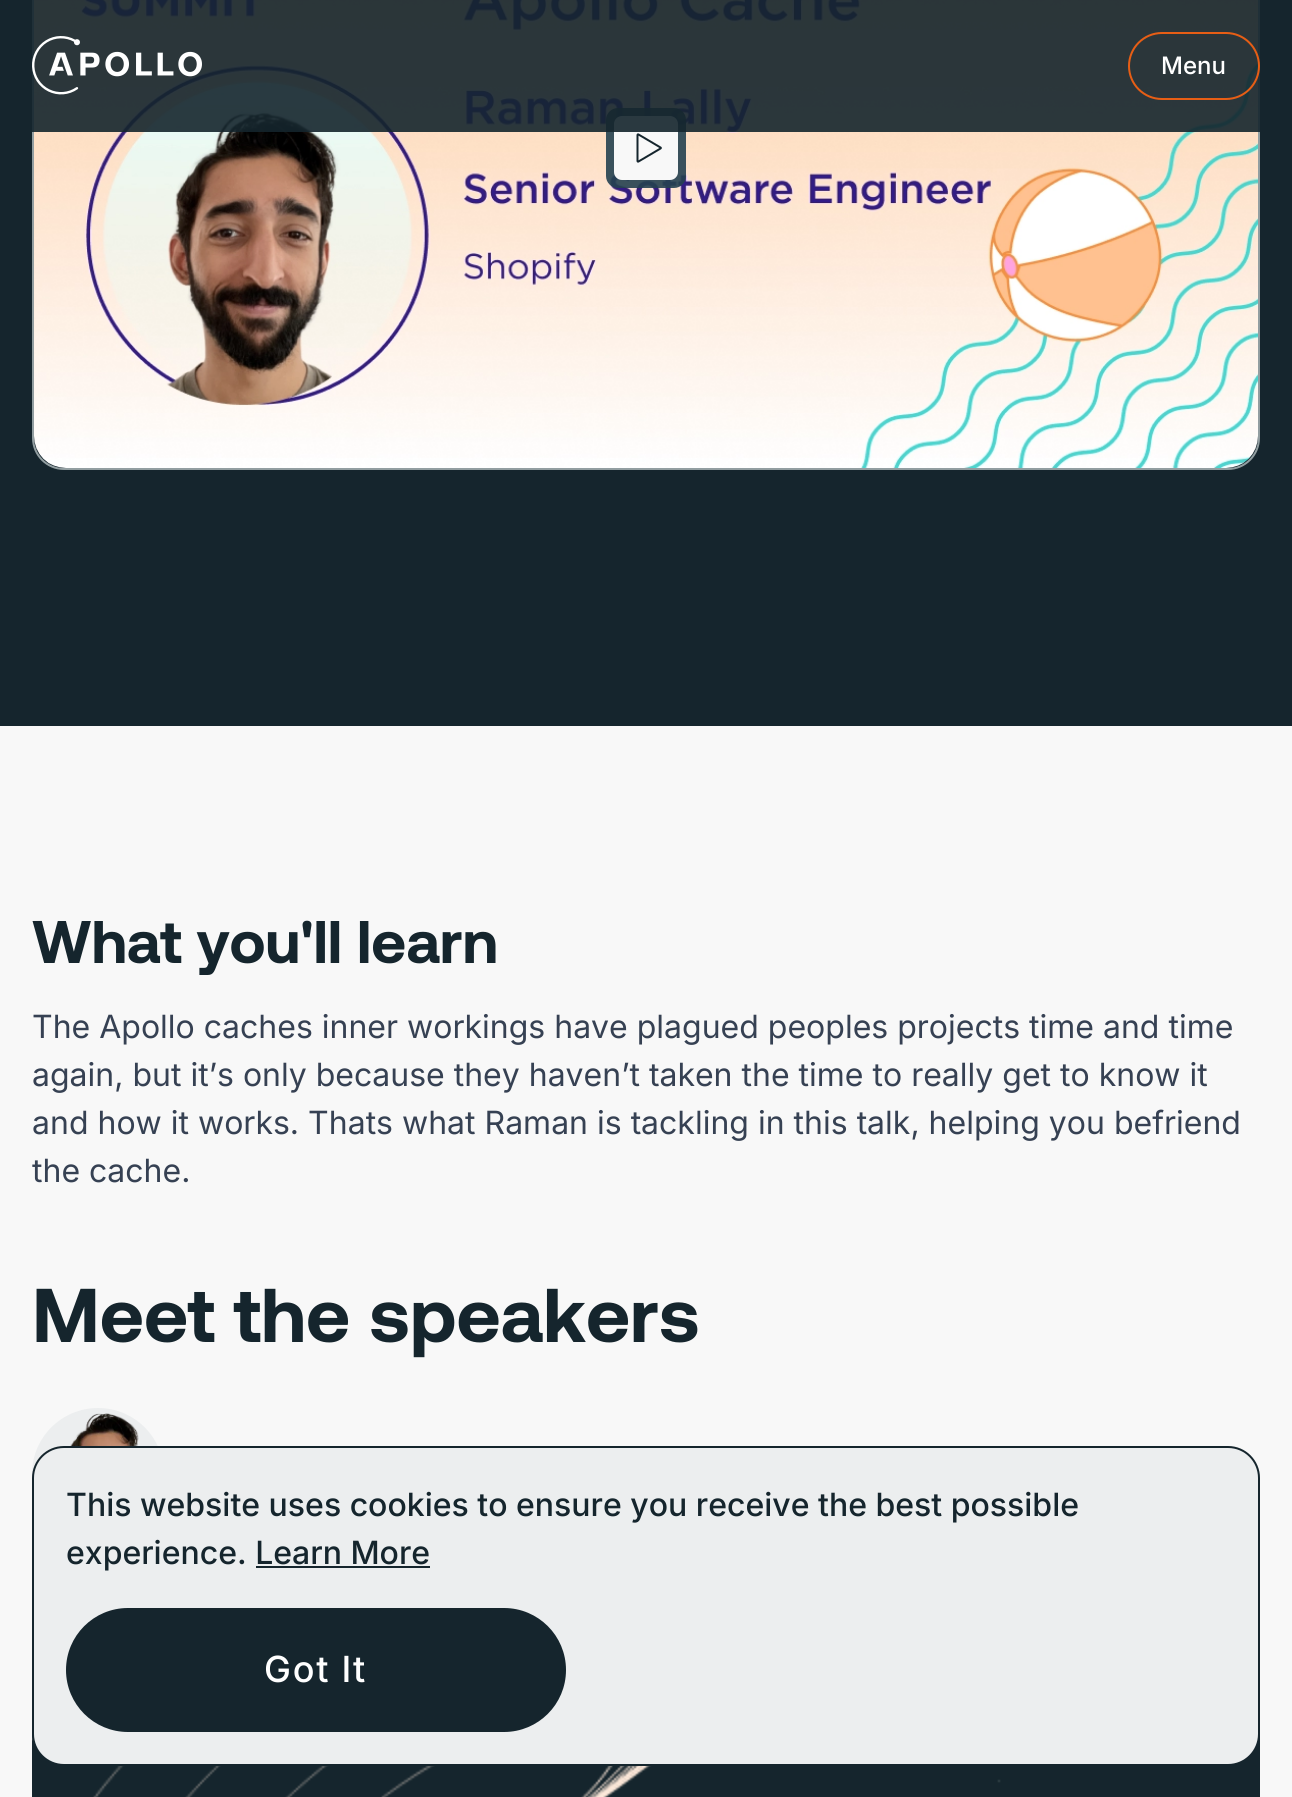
#include <cairo/cairo.h>
#include <math.h>
#include <stddef.h>

static cairo_t *cr;

static void use_color(int r, int g, int b) {
  cairo_set_source_rgb(cr, r / 255.0, g / 255.0, b / 255.0);
}

static void text(double x, double y, const char *s, const char *family, double size, int italic, int bold, int r, int g, int b) {
  cairo_select_font_face(cr, family, italic ? CAIRO_FONT_SLANT_ITALIC : CAIRO_FONT_SLANT_NORMAL,
    bold ? CAIRO_FONT_WEIGHT_BOLD : CAIRO_FONT_WEIGHT_NORMAL);
  cairo_set_font_size(cr, size);
  use_color(r, g, b);
  cairo_move_to(cr, x, y);
  cairo_show_text(cr, s);
}

static void spaced_text(double x, double y, const char *s, double letter, double word) {
  cairo_move_to(cr, x, y);
  while (*s) {
    char ch[5] = {0};
    int n = 0;
    do ch[n++] = *s++; while ((*s & 0xC0) == 0x80);
    cairo_show_text(cr, ch);
    cairo_rel_move_to(cr, letter + word * (*ch == ' '), 0);
  }
}

static void box(double x, double y, double w, double h, int r, int g, int b) {
  use_color(r, g, b);
  cairo_rectangle(cr, x, y, w, h);
  cairo_fill(cr);
}

static void round_rect(double x, double y, double w, double h, double r) {
  cairo_new_sub_path(cr);
  cairo_arc(cr, x + w - r, y + h - r, r, 0, M_PI / 2);
  cairo_arc(cr, x + r, y + h - r, r, M_PI / 2, M_PI);
  cairo_arc(cr, x + r, y + r, r, M_PI, 1.5 * M_PI);
  cairo_arc(cr, x + w - r, y + r, r, 1.5 * M_PI, 2 * M_PI);
  cairo_close_path(cr);
}

static void picture(const char *path, double x, double y, double w, double h) {
  cairo_surface_t *image = cairo_image_surface_create_from_png(path);
  cairo_save(cr);
  cairo_set_source_surface(cr, image, x, y);
  cairo_rectangle(cr, x, y, w, h);
  cairo_fill(cr);
  cairo_restore(cr);
  cairo_surface_destroy(image);
}

static void draw(void) {
  use_color(248, 248, 248);
  cairo_paint(cr);
  box(0, 0, 1292, 726, 21, 37, 45);
  round_rect(33, -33, 1226, 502, 31);
  use_color(146, 158, 161);
  cairo_stroke(cr);
  picture("img_02.png", 34, 0, 1224, 468);
  cairo_set_source_rgba(cr, 0.145, 0.259, 0.314, 0.9);
  round_rect(606, 108, 80, 80, 12);
  cairo_fill(cr);
  use_color(248, 248, 248);
  round_rect(614, 116, 64, 64, 8);
  cairo_fill(cr);
  cairo_set_source_rgba(cr, 0.082, 0.145, 0.176, 0.9);
  cairo_rectangle(cr, 32, 0, 1228, 132);
  cairo_fill(cr);
  picture("img_01.png", 32, 36, 170, 59);
  round_rect(1129, 33, 130, 66, 33);
  use_color(231, 94, 21);
  cairo_stroke(cr);
  cairo_new_path(cr);
  cairo_move_to(cr, 638.5, 134.5);
  cairo_curve_to(cr, 638, 134, 637.5, 134.5, 637.5, 135);
  cairo_line_to(cr, 637.5, 161);
  cairo_curve_to(cr, 637.5, 161.5, 638, 162, 638.5, 161.5);
  cairo_line_to(cr, 660.5, 148.5);
  cairo_curve_to(cr, 661, 148.5, 661, 147.5, 660.5, 147.5);
  cairo_close_path(cr);
  use_color(21, 37, 45);
  cairo_set_line_cap(cr, CAIRO_LINE_CAP_ROUND);
  cairo_set_line_join(cr, CAIRO_LINE_JOIN_ROUND);
  cairo_stroke(cr);
  use_color(236, 238, 239);
  cairo_arc(cr, 98, 1474, 66, 0, 2 * M_PI);
  cairo_fill(cr);
  picture("img_03.png", 70, 1413, 69, 33);
  box(32, 1734, 1228, 63, 21, 37, 45);
  picture("img_04.png", 32, 1735, 969, 62);
  use_color(236, 238, 239);
  round_rect(33, 1447, 1226, 318, 31);
  cairo_fill_preserve(cr);
  use_color(21, 37, 45);
  cairo_set_line_cap(cr, CAIRO_LINE_CAP_BUTT);
  cairo_set_line_join(cr, CAIRO_LINE_JOIN_MITER);
  cairo_stroke(cr);
  box(256, 1566, 174, 2, 21, 37, 45);
  round_rect(67, 1609, 498, 122, 61);
  cairo_fill_preserve(cr);
  cairo_stroke(cr);
  text(1161, 74, "Menu", "Inter Medium", 24, 0, 0, 255, 255, 255);
  text(32, 963, "What you'll learn", "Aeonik", 60, 0, 1, 21, 37, 45);
  text(32, 1038, "The Apollo caches inner workings have plagued peoples projects time and time", "Inter", 32, 0, 0, 54, 65, 83);
  text(32, 1086, "again, but it’s only because they haven’t taken the time to really get to know it", "Inter", 32, 0, 0, 54, 65, 83);
  text(32, 1134, "and how it works. Thats what Raman is tackling in this talk, helping you befriend", "Inter", 32, 0, 0, 54, 65, 83);
  text(32, 1182, "the cache.", "Inter", 32, 0, 0, 54, 65, 83);
  text(32, 1342, "Meet the speakers", "Aeonik", 76, 0, 1, 21, 37, 45);
  text(66, 1516, "This website uses cookies to ensure you receive the best possible", "Inter Medium", 32, 0, 0, 21, 37, 45);
  text(66, 1564, "experience. Learn More", "Inter Medium", 32, 0, 0, 21, 37, 45);
  cairo_set_font_size(cr, 36);
  use_color(255, 255, 255);
  spaced_text(264, 1682, "Got It", 1.75, 0);
}

int main(void) {
  cairo_surface_t *surface = cairo_image_surface_create(CAIRO_FORMAT_RGB24, 1292, 1797);
  cr = cairo_create(surface);
  cairo_font_options_t *options = cairo_font_options_create();
  cairo_font_options_set_hint_metrics(options, CAIRO_HINT_METRICS_OFF);
  cairo_font_options_set_hint_style(options, CAIRO_HINT_STYLE_NONE);
  cairo_set_font_options(cr, options);
  cairo_set_miter_limit(cr, 4);
  draw();
  cairo_surface_write_to_png(surface, "out.png");
  cairo_font_options_destroy(options);
  cairo_destroy(cr);
  cairo_surface_destroy(surface);
  return 0;
}
